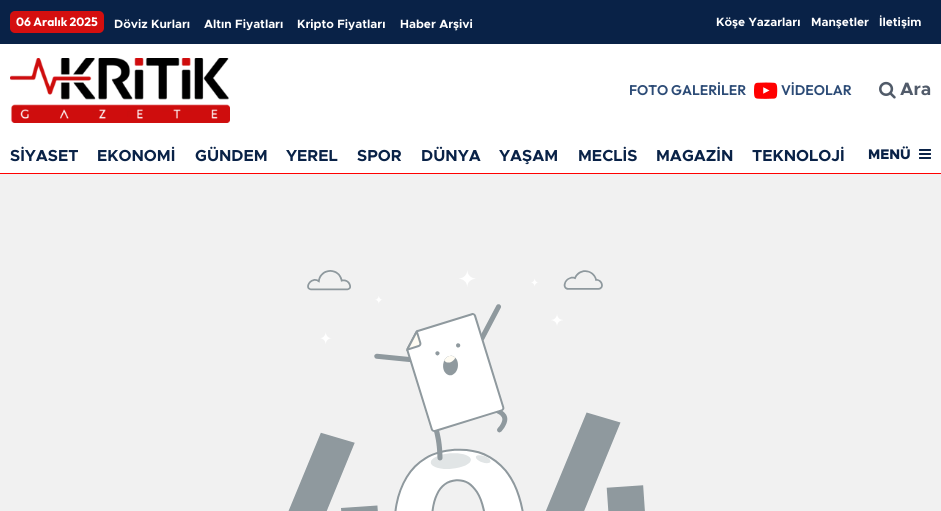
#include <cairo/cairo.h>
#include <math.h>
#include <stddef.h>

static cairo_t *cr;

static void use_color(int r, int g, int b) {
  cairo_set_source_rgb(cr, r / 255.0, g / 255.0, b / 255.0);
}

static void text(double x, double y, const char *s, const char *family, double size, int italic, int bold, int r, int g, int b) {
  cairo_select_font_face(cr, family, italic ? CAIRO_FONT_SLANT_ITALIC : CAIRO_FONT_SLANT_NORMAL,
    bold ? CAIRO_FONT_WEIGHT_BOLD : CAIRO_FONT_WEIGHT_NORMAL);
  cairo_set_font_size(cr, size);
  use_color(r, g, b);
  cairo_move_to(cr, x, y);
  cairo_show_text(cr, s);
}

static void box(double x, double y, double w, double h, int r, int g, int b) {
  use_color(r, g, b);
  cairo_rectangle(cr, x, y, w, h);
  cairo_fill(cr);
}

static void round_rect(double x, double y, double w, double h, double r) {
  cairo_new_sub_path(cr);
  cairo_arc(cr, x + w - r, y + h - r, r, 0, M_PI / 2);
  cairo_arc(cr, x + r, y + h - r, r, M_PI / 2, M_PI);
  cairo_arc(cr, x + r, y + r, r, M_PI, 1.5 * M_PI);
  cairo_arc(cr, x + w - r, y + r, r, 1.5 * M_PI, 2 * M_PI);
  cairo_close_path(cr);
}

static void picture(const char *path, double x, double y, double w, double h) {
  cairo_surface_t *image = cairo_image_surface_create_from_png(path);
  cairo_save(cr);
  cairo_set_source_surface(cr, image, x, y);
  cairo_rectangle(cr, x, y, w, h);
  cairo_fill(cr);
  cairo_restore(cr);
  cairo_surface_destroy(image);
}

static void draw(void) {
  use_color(241, 241, 241);
  cairo_paint(cr);
  box(0, 0, 941, 44, 9, 34, 71);
  use_color(212, 15, 15);
  round_rect(10, 11, 94, 22, 5);
  cairo_fill(cr);
  box(0, 44, 941, 129, 255, 255, 255);
  picture("img_01.png", 10, 58, 220, 65);
  picture("img_02.png", 754, 82, 24, 17);
  picture("img_03.png", 879, 81, 17, 18);
  box(0, 173, 941, 1, 255, 0, 0);
  picture("img_04.png", 919, 149, 12, 10);
  picture("img_05.png", 288, 270, 357, 241);
  text(16, 26, "06 Aralık 2025", "Outfit", 12, 0, 1, 255, 255, 255);
  text(114, 28, "Döviz Kurları", "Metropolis", 12, 0, 1, 255, 255, 255);
  text(204, 28, "Altın Fiyatları", "Metropolis", 12, 0, 1, 255, 255, 255);
  text(297, 28, "Kripto Fiyatları", "Metropolis", 12, 0, 1, 255, 255, 255);
  text(400, 28, "Haber Arşivi", "Metropolis", 12, 0, 1, 255, 255, 255);
  text(716, 26, "Köşe Yazarları", "Metropolis", 12, 0, 1, 255, 255, 255);
  text(811, 26, "Manşetler", "Metropolis", 12, 0, 1, 255, 255, 255);
  text(879, 26, "İletişim", "Metropolis", 12, 0, 1, 255, 255, 255);
  text(629, 95, "FOTO GALERİLER", "Outfit SemiBold", 14, 0, 0, 44, 75, 118);
  text(781, 95, "VİDEOLAR", "Outfit SemiBold", 14, 0, 0, 44, 75, 118);
  text(900, 95, "Ara", "Metropolis", 18, 0, 1, 81, 91, 106);
  text(10, 161, "SİYASET", "Metropolis", 16, 0, 1, 9, 34, 71);
  text(97, 161, "EKONOMİ", "Metropolis", 16, 0, 1, 9, 34, 71);
  text(195, 161, "GÜNDEM", "Metropolis", 16, 0, 1, 9, 34, 71);
  text(286, 161, "YEREL", "Metropolis", 16, 0, 1, 9, 34, 71);
  text(357, 161, "SPOR", "Metropolis", 16, 0, 1, 9, 34, 71);
  text(421, 161, "DÜNYA", "Metropolis", 16, 0, 1, 9, 34, 71);
  text(499, 161, "YAŞAM", "Metropolis", 16, 0, 1, 9, 34, 71);
  text(578, 161, "MECLİS", "Metropolis", 16, 0, 1, 9, 34, 71);
  text(656, 161, "MAGAZİN", "Metropolis", 16, 0, 1, 9, 34, 71);
  text(752, 161, "TEKNOLOJİ", "Metropolis", 16, 0, 1, 9, 34, 71);
  text(868, 159, "MENÜ", "Metropolis ExtraBold", 14, 0, 0, 9, 34, 71);
}

int main(void) {
  cairo_surface_t *surface = cairo_image_surface_create(CAIRO_FORMAT_RGB24, 941, 511);
  cr = cairo_create(surface);
  cairo_font_options_t *options = cairo_font_options_create();
  cairo_font_options_set_hint_metrics(options, CAIRO_HINT_METRICS_OFF);
  cairo_font_options_set_hint_style(options, CAIRO_HINT_STYLE_NONE);
  cairo_set_font_options(cr, options);
  cairo_set_miter_limit(cr, 4);
  draw();
  cairo_surface_write_to_png(surface, "out.png");
  cairo_font_options_destroy(options);
  cairo_destroy(cr);
  cairo_surface_destroy(surface);
  return 0;
}
